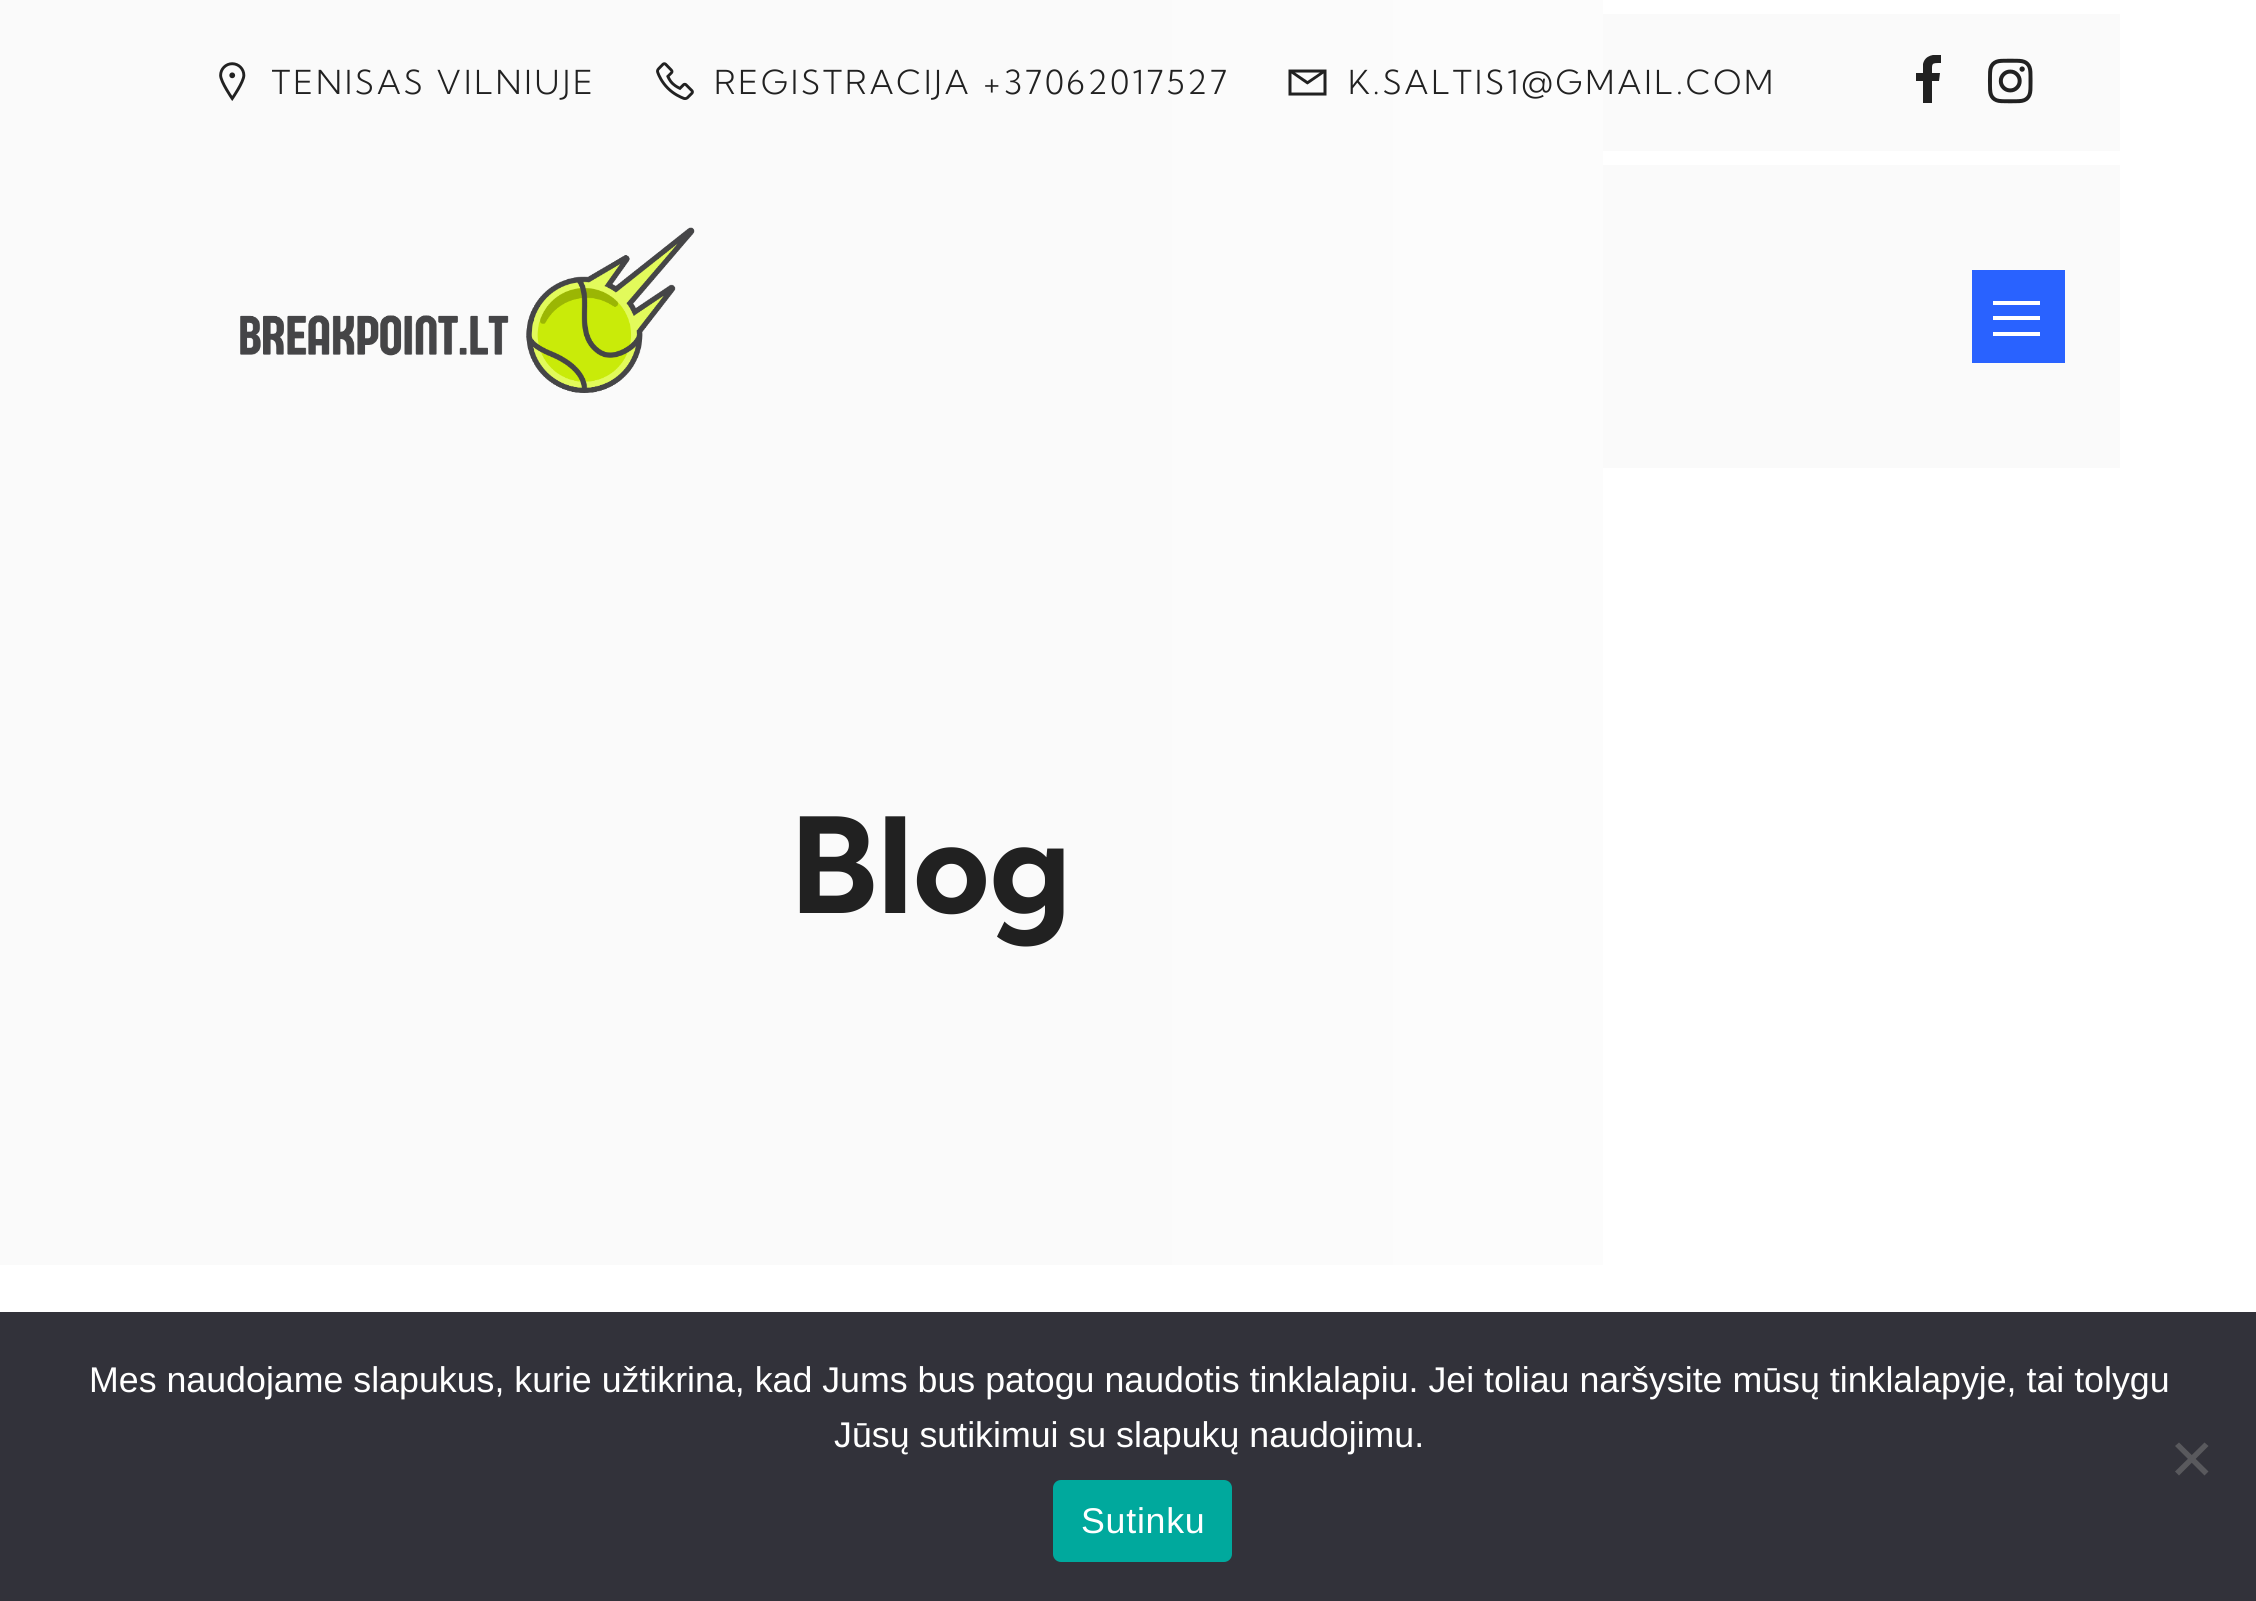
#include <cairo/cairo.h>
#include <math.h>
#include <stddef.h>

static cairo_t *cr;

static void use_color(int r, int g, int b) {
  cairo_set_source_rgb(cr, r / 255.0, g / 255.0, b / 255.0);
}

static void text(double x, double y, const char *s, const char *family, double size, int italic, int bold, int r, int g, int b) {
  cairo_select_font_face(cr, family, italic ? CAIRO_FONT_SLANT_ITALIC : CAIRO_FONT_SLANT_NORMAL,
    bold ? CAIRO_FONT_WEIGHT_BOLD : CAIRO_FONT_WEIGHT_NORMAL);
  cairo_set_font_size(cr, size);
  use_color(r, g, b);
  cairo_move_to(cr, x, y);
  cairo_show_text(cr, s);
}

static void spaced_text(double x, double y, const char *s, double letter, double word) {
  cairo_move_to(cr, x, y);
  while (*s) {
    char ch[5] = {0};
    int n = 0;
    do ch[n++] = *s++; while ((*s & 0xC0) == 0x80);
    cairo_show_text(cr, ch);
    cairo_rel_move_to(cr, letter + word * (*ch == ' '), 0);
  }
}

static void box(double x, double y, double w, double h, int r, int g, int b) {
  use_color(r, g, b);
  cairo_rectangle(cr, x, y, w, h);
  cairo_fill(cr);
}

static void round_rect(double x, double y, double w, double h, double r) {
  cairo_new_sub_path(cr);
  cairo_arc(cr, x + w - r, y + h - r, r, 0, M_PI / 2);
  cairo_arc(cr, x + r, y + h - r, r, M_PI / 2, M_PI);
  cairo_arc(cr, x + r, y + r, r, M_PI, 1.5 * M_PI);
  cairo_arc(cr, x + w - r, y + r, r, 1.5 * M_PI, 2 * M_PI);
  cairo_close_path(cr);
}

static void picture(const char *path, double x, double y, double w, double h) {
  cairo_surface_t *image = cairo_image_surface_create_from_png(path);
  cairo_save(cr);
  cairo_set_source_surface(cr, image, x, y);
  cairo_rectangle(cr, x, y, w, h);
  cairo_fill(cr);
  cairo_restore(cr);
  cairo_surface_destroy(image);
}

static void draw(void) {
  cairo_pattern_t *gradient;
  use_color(255, 255, 255);
  cairo_paint(cr);
  box(1603, 14, 517, 137, 250, 250, 250);
  gradient = cairo_pattern_create_linear(0, 633, 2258, 632);
  cairo_pattern_add_color_stop_rgba(gradient, 0.46, 0.98, 0.98, 0.98, 1);
  cairo_pattern_add_color_stop_rgba(gradient, 0.96, 1, 1, 1, 1);
  cairo_set_source(cr, gradient);
  cairo_pattern_destroy(gradient);
  cairo_rectangle(cr, 0, 0, 1603, 1265);
  cairo_fill(cr);
  picture("img_01.png", 219, 62, 27, 39);
  picture("img_02.png", 656, 62, 38, 38);
  use_color(33, 33, 33);
  cairo_new_path(cr);
  cairo_move_to(cr, 1288.5, 69.5);
  cairo_line_to(cr, 1326.5, 69.5);
  cairo_line_to(cr, 1326.5, 95.5);
  cairo_line_to(cr, 1288.5, 95.5);
  cairo_close_path(cr);
  cairo_move_to(cr, 1295, 72.5);
  cairo_line_to(cr, 1307.5, 81);
  cairo_line_to(cr, 1320, 72.5);
  cairo_close_path(cr);
  cairo_move_to(cr, 1291.5, 73.5);
  cairo_line_to(cr, 1291.5, 92.5);
  cairo_line_to(cr, 1323.5, 92.5);
  cairo_line_to(cr, 1323.5, 73.5);
  cairo_line_to(cr, 1307.5, 84.5);
  cairo_line_to(cr, 1306.5, 84);
  cairo_close_path(cr);
  cairo_fill(cr);
  cairo_save(cr);
  cairo_rectangle(cr, 1900, 55, 55, 55);
  cairo_clip(cr);
  cairo_new_path(cr);
  cairo_move_to(cr, 1941, 55);
  cairo_line_to(cr, 1941, 63);
  cairo_curve_to(cr, 1931, 63, 1932, 63, 1932, 73);
  cairo_line_to(cr, 1940, 73);
  cairo_line_to(cr, 1939, 81);
  cairo_line_to(cr, 1932, 81);
  cairo_line_to(cr, 1932, 103);
  cairo_line_to(cr, 1923, 103);
  cairo_line_to(cr, 1923, 81);
  cairo_line_to(cr, 1916, 81);
  cairo_line_to(cr, 1916, 73);
  cairo_line_to(cr, 1923, 73);
  cairo_line_to(cr, 1923, 64);
  cairo_curve_to(cr, 1925, 55, 1934, 54, 1941, 55);
  cairo_close_path(cr);
  cairo_fill(cr);
  cairo_restore(cr);
  picture("img_03.png", 1987, 58, 46, 46);
  box(1603, 165, 517, 303, 250, 250, 250);
  picture("img_04.png", 240, 227, 455, 166);
  box(1972, 270, 93, 93, 41, 98, 255);
  use_color(255, 255, 255);
  cairo_new_path(cr);
  cairo_move_to(cr, 1993, 301);
  cairo_line_to(cr, 2040, 301);
  cairo_line_to(cr, 2040, 305);
  cairo_line_to(cr, 1993, 305);
  cairo_close_path(cr);
  cairo_move_to(cr, 1993, 316);
  cairo_line_to(cr, 2040, 316);
  cairo_line_to(cr, 2040, 320);
  cairo_line_to(cr, 1993, 320);
  cairo_close_path(cr);
  cairo_move_to(cr, 1993, 332);
  cairo_line_to(cr, 2040, 332);
  cairo_line_to(cr, 2040, 336);
  cairo_line_to(cr, 1993, 336);
  cairo_close_path(cr);
  cairo_fill(cr);
  box(0, 1312, 2256, 289, 50, 50, 58);
  use_color(89, 89, 93);
  cairo_new_path(cr);
  cairo_move_to(cr, 2204.5, 1442.5);
  cairo_line_to(cr, 2208.5, 1446);
  cairo_line_to(cr, 2179, 1475.5);
  cairo_line_to(cr, 2175, 1471.5);
  cairo_close_path(cr);
  cairo_fill(cr);
  cairo_new_path(cr);
  cairo_move_to(cr, 2175, 1446);
  cairo_line_to(cr, 2179, 1442.5);
  cairo_line_to(cr, 2208.5, 1471.5);
  cairo_line_to(cr, 2204.5, 1475.5);
  cairo_close_path(cr);
  cairo_fill(cr);
  use_color(0, 169, 157);
  round_rect(1053, 1480, 179, 82, 8);
  cairo_fill(cr);
  cairo_save(cr);
  cairo_rectangle(cr, 272, 61, 325, 44);
  cairo_clip(cr);
  cairo_select_font_face(cr, "Kumbh Sans Light", CAIRO_FONT_SLANT_NORMAL, CAIRO_FONT_WEIGHT_NORMAL);
  cairo_set_font_size(cr, 33);
  use_color(33, 33, 33);
  spaced_text(271, 94, "TENISAS VILNIUJE", 2.75, 0);
  cairo_restore(cr);
  cairo_select_font_face(cr, "Kumbh Sans Light", CAIRO_FONT_SLANT_NORMAL, CAIRO_FONT_WEIGHT_NORMAL);
  cairo_set_font_size(cr, 33);
  use_color(33, 33, 33);
  spaced_text(714, 94, "REGISTRACIJA +37062017527", 2.75, 0);
  spaced_text(1348, 94, "K.SALTIS1@GMAIL.COM", 2.75, 0);
  text(792, 913, "Blog", "Kumbh Sans", 132, 0, 1, 33, 33, 33);
  text(89, 1392, "Mes naudojame slapukus, kurie užtikrina, kad Jums bus patogu naudotis tinklalapiu. Jei toliau naršysite mūsų tinklalapyje, tai tolygu", "Liberation Sans", 35.75, 0, 0, 255, 255, 255);
  text(834, 1447, "Jūsų sutikimui su slapukų naudojimu.", "Liberation Sans", 35.75, 0, 0, 255, 255, 255);
  spaced_text(1081, 1533, "Sutinku", 0.75, 0);
}

int main(void) {
  cairo_surface_t *surface = cairo_image_surface_create(CAIRO_FORMAT_RGB24, 2256, 1601);
  cr = cairo_create(surface);
  cairo_font_options_t *options = cairo_font_options_create();
  cairo_font_options_set_hint_metrics(options, CAIRO_HINT_METRICS_OFF);
  cairo_font_options_set_hint_style(options, CAIRO_HINT_STYLE_NONE);
  cairo_set_font_options(cr, options);
  cairo_set_miter_limit(cr, 4);
  draw();
  cairo_surface_write_to_png(surface, "out.png");
  cairo_font_options_destroy(options);
  cairo_destroy(cr);
  cairo_surface_destroy(surface);
  return 0;
}
